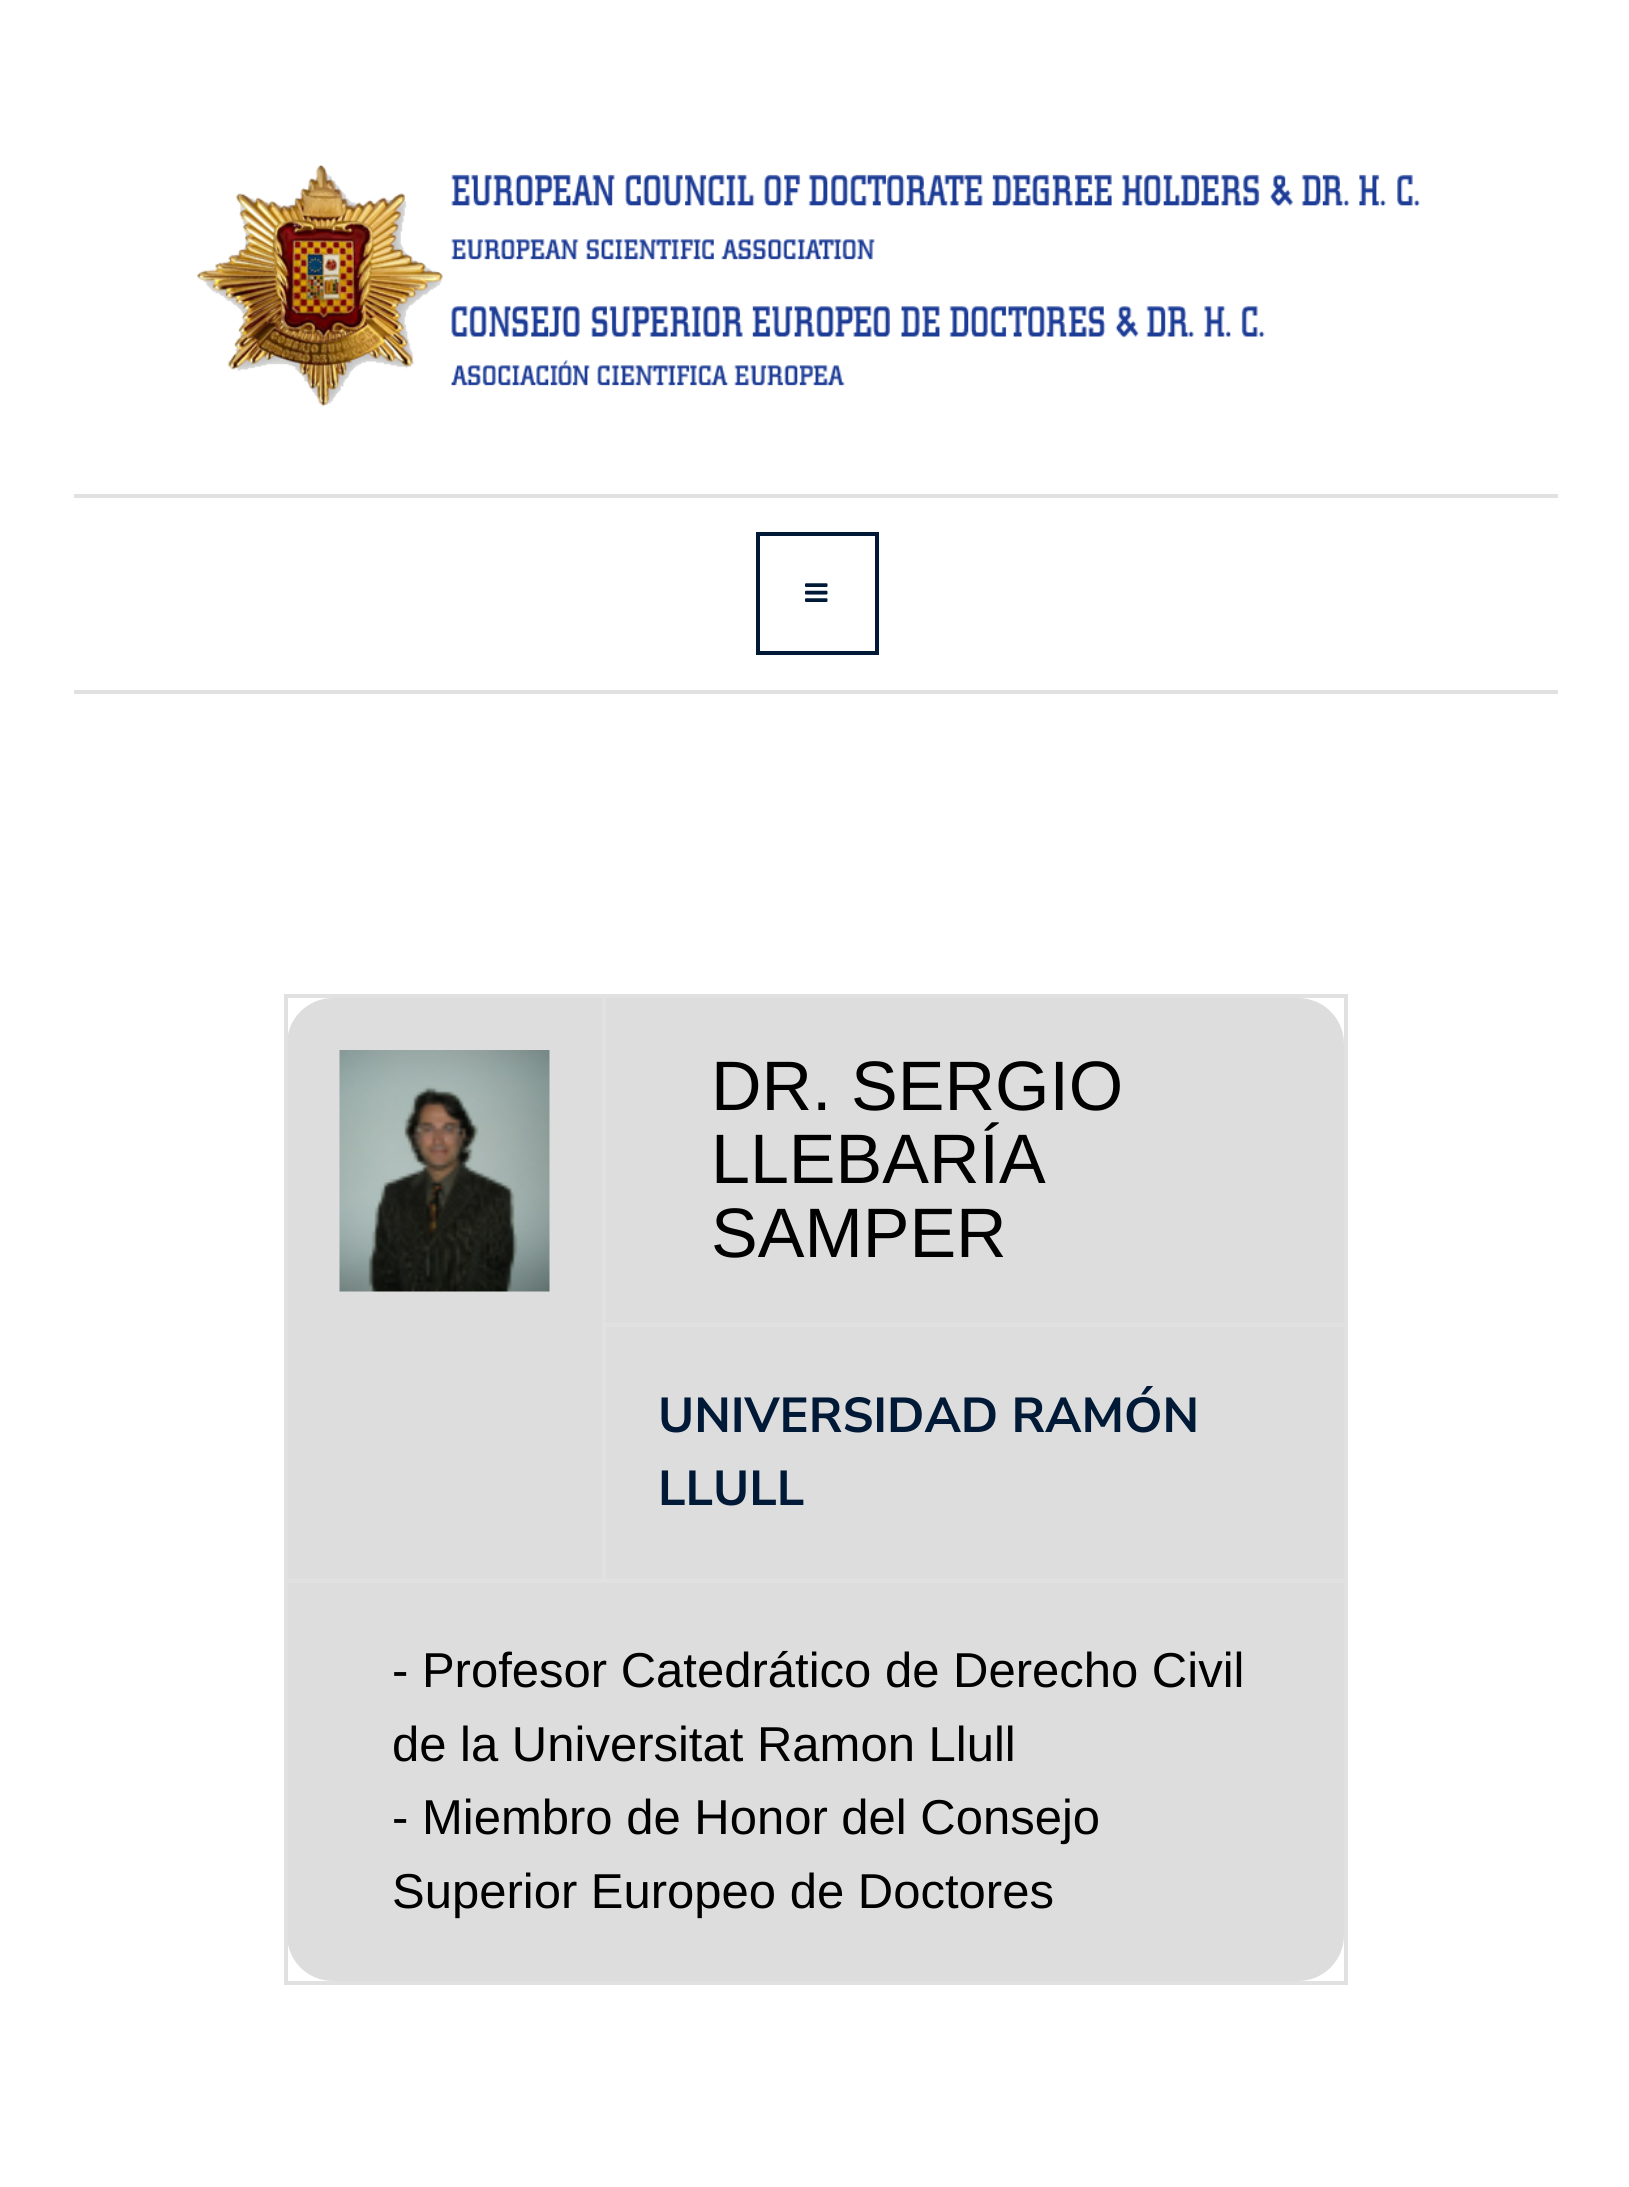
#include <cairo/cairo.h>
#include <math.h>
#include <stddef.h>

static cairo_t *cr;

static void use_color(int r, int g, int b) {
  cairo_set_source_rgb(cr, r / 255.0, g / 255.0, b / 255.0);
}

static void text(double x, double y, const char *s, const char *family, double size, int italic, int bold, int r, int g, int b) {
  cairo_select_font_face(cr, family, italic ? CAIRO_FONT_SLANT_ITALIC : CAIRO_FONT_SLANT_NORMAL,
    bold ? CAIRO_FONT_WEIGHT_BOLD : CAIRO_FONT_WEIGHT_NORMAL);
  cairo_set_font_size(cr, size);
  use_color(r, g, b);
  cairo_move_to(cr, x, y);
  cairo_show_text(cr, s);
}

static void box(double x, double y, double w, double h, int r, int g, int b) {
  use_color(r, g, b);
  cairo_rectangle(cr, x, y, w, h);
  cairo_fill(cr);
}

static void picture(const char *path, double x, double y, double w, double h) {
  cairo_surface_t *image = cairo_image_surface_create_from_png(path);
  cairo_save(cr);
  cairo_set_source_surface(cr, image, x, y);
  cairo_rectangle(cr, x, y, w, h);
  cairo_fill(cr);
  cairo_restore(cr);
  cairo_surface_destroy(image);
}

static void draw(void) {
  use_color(255, 255, 255);
  cairo_paint(cr);
  picture("img_01.png", 197, 164, 1223, 243);
  box(74, 494, 1484, 4, 225, 225, 225);
  box(74, 690, 1484, 4, 225, 225, 225);
  cairo_rectangle(cr, 758, 534, 119, 119);
  use_color(0, 25, 54);
  cairo_set_line_width(cr, 4);
  cairo_stroke(cr);
  picture("img_02.png", 805, 583, 23, 19);
  box(284, 994, 1064, 4, 225, 225, 225);
  box(1344, 994, 4, 991, 225, 225, 225);
  box(284, 1981, 1064, 4, 225, 225, 225);
  use_color(221, 221, 221);
  cairo_new_path(cr);
  cairo_move_to(cr, 333, 998);
  cairo_line_to(cr, 606, 998);
  cairo_line_to(cr, 606, 1582);
  cairo_line_to(cr, 287, 1582);
  cairo_line_to(cr, 287, 1044);
  cairo_curve_to(cr, 287, 1018.5, 307.5, 998, 333, 998);
  cairo_close_path(cr);
  cairo_fill(cr);
  cairo_new_path(cr);
  cairo_move_to(cr, 287, 1582);
  cairo_line_to(cr, 1344, 1582);
  cairo_line_to(cr, 1344, 1935);
  cairo_curve_to(cr, 1344, 1960.5, 1323.5, 1981, 1298, 1981);
  cairo_line_to(cr, 333, 1981);
  cairo_curve_to(cr, 307.5, 1981, 287, 1960.5, 287, 1935);
  cairo_close_path(cr);
  cairo_fill(cr);
  box(284, 994, 4, 991, 225, 225, 225);
  picture("img_03.png", 339, 1050, 211, 242);
  use_color(221, 221, 221);
  cairo_new_path(cr);
  cairo_move_to(cr, 606, 998);
  cairo_line_to(cr, 1298, 998);
  cairo_curve_to(cr, 1323.5, 998, 1344, 1018.5, 1344, 1044);
  cairo_line_to(cr, 1344, 1327);
  cairo_line_to(cr, 606, 1327);
  cairo_close_path(cr);
  cairo_fill(cr);
  box(606, 1327, 738, 252, 221, 221, 221);
  box(602, 1323, 742, 4, 225, 225, 225);
  box(287, 1579, 1057, 4, 225, 225, 225);
  box(602, 998, 4, 584, 225, 225, 225);
  text(711, 1110, "DR. SERGIO", "Liberation Sans", 70, 0, 0, 0, 0, 0);
  text(711, 1183, "LLEBARÍA", "Liberation Sans", 70, 0, 0, 0, 0, 0);
  text(711, 1257, "SAMPER", "Liberation Sans", 70, 0, 0, 0, 0, 0);
  text(658, 1432, "UNIVERSIDAD RAMÓN", "Nunito Sans", 49, 0, 1, 0, 25, 54);
  text(658, 1505, "LLULL", "Nunito Sans", 49, 0, 1, 0, 25, 54);
  text(392, 1687, "- Profesor Catedrático de Derecho Civil", "Liberation Sans", 49, 0, 0, 0, 0, 0);
  text(392, 1761, "de la Universitat Ramon Llull", "Liberation Sans", 49, 0, 0, 0, 0, 0);
  text(392, 1834, "- Miembro de Honor del Consejo", "Liberation Sans", 49, 0, 0, 0, 0, 0);
  text(392, 1908, "Superior Europeo de Doctores", "Liberation Sans", 49, 0, 0, 0, 0, 0);
}

int main(void) {
  cairo_surface_t *surface = cairo_image_surface_create(CAIRO_FORMAT_RGB24, 1629, 2187);
  cr = cairo_create(surface);
  cairo_font_options_t *options = cairo_font_options_create();
  cairo_font_options_set_hint_metrics(options, CAIRO_HINT_METRICS_OFF);
  cairo_font_options_set_hint_style(options, CAIRO_HINT_STYLE_NONE);
  cairo_set_font_options(cr, options);
  cairo_set_miter_limit(cr, 4);
  draw();
  cairo_surface_write_to_png(surface, "out.png");
  cairo_font_options_destroy(options);
  cairo_destroy(cr);
  cairo_surface_destroy(surface);
  return 0;
}
